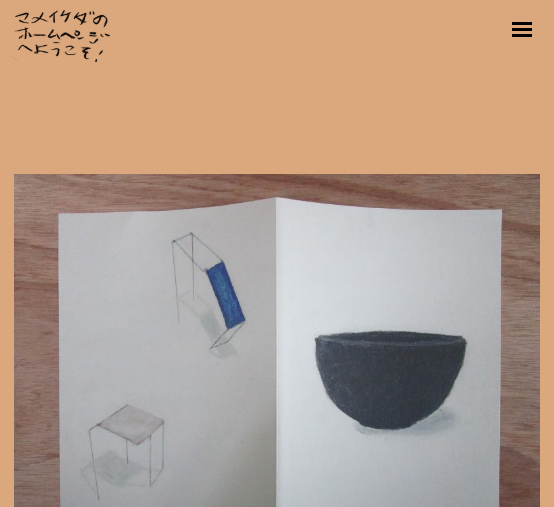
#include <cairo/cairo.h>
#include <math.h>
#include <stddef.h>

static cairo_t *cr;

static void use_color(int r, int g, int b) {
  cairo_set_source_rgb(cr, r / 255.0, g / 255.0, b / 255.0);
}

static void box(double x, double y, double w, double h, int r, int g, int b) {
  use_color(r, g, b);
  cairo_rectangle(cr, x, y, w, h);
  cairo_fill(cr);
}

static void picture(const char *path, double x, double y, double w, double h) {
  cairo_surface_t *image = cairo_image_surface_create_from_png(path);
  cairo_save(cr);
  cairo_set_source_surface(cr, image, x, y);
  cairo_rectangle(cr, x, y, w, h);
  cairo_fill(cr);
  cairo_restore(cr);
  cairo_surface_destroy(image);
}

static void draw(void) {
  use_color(219, 168, 125);
  cairo_paint(cr);
  picture("img_01.png", 10, 10, 100, 53);
  box(512, 28, 20, 3, 0, 0, 0);
  box(512, 22, 20, 3, 0, 0, 0);
  box(512, 34, 20, 3, 0, 0, 0);
  picture("img_02.png", 14, 174, 526, 333);
}

int main(void) {
  cairo_surface_t *surface = cairo_image_surface_create(CAIRO_FORMAT_RGB24, 554, 507);
  cr = cairo_create(surface);
  cairo_font_options_t *options = cairo_font_options_create();
  cairo_font_options_set_hint_metrics(options, CAIRO_HINT_METRICS_OFF);
  cairo_font_options_set_hint_style(options, CAIRO_HINT_STYLE_NONE);
  cairo_set_font_options(cr, options);
  cairo_set_miter_limit(cr, 4);
  draw();
  cairo_surface_write_to_png(surface, "out.png");
  cairo_font_options_destroy(options);
  cairo_destroy(cr);
  cairo_surface_destroy(surface);
  return 0;
}
